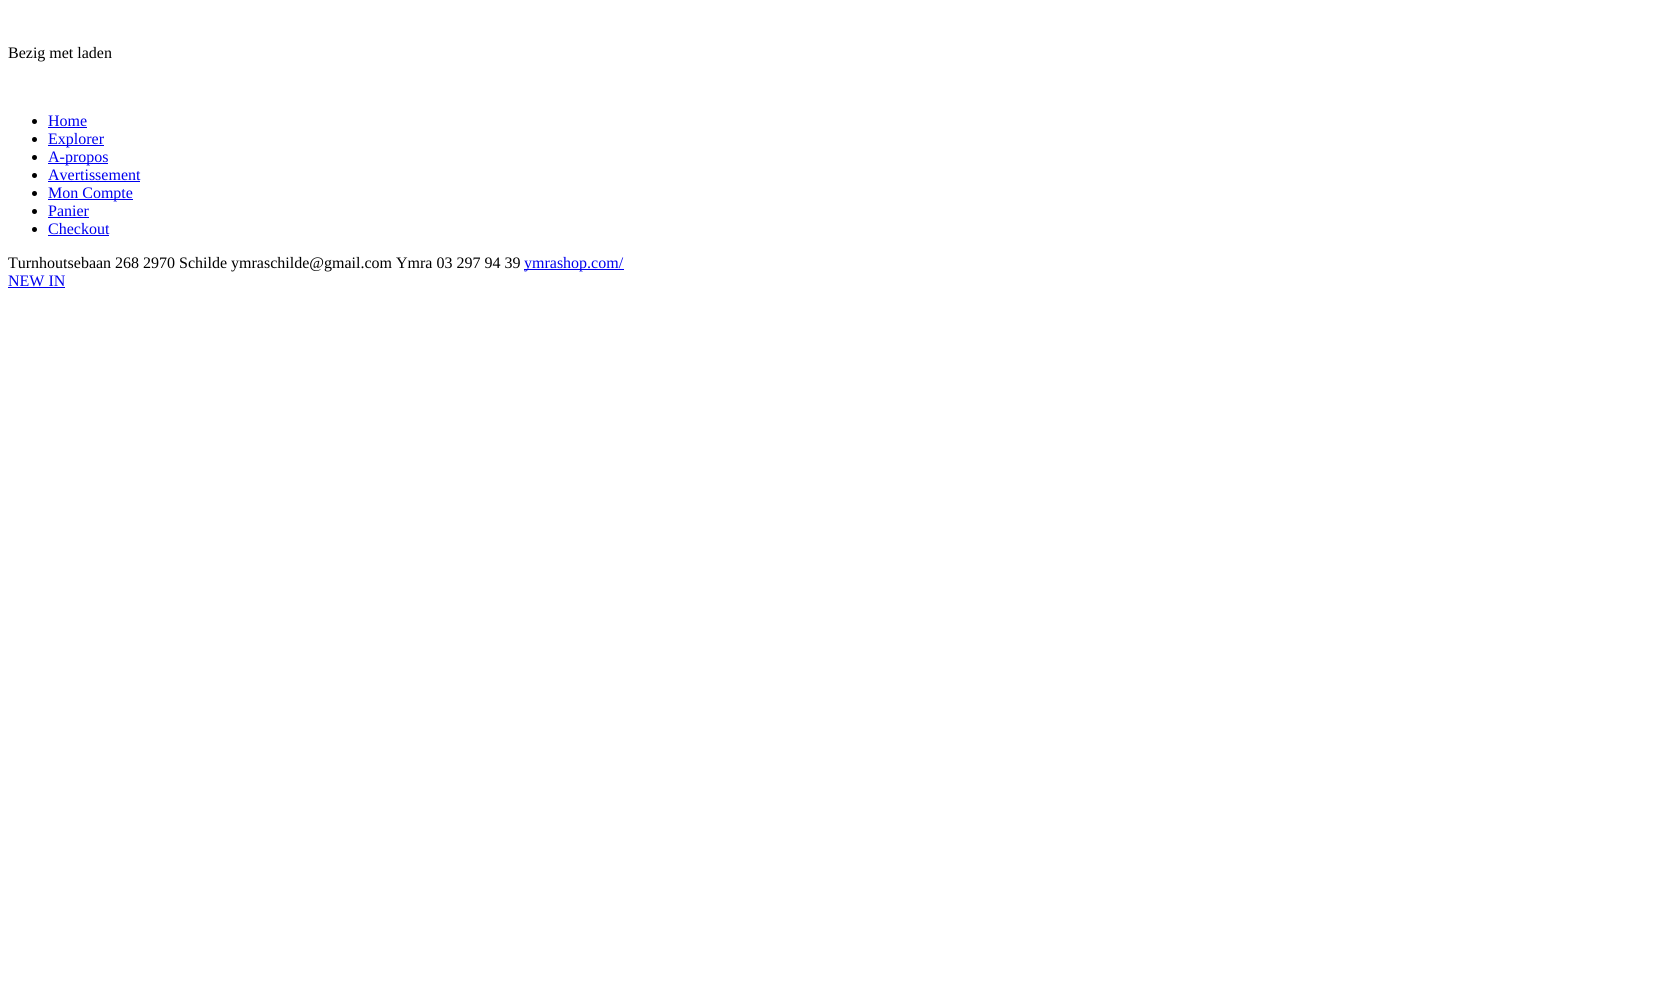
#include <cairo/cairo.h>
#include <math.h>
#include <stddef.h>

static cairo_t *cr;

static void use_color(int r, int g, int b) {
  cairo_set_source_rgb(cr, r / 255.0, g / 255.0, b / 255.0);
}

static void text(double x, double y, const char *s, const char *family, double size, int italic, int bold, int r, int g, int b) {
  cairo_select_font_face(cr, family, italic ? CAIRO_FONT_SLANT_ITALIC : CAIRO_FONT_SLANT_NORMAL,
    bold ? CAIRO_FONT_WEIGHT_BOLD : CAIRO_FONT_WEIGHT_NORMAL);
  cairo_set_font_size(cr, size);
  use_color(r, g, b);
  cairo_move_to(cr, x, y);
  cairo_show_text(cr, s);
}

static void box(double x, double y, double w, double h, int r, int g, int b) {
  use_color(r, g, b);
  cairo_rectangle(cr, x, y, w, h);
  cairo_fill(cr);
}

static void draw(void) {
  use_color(255, 255, 255);
  cairo_paint(cr);
  use_color(0, 0, 0);
  cairo_arc(cr, 34.5, 121.5, 2.5, 0, 2 * M_PI);
  cairo_fill(cr);
  box(48, 127, 39, 1, 0, 0, 238);
  use_color(0, 0, 0);
  cairo_arc(cr, 34.5, 139.5, 2.5, 0, 2 * M_PI);
  cairo_fill(cr);
  box(48, 145, 56, 1, 0, 0, 238);
  use_color(0, 0, 0);
  cairo_arc(cr, 34.5, 157.5, 2.5, 0, 2 * M_PI);
  cairo_fill(cr);
  box(48, 163, 60, 1, 0, 0, 238);
  use_color(0, 0, 0);
  cairo_arc(cr, 34.5, 175.5, 2.5, 0, 2 * M_PI);
  cairo_fill(cr);
  box(48, 181, 92, 1, 0, 0, 238);
  use_color(0, 0, 0);
  cairo_arc(cr, 34.5, 193.5, 2.5, 0, 2 * M_PI);
  cairo_fill(cr);
  box(48, 199, 85, 1, 0, 0, 238);
  use_color(0, 0, 0);
  cairo_arc(cr, 34.5, 211.5, 2.5, 0, 2 * M_PI);
  cairo_fill(cr);
  box(48, 217, 41, 1, 0, 0, 238);
  use_color(0, 0, 0);
  cairo_arc(cr, 34.5, 229.5, 2.5, 0, 2 * M_PI);
  cairo_fill(cr);
  box(48, 235, 61, 1, 0, 0, 238);
  box(524, 269, 100, 1, 0, 0, 238);
  box(8, 287, 57, 1, 0, 0, 238);
  text(8, 58, "Bezig met laden", "Liberation Serif", 16, 0, 0, 0, 0, 0);
  text(48, 126, "Home", "Liberation Serif", 16, 0, 0, 0, 0, 238);
  text(48, 144, "Explorer", "Liberation Serif", 16, 0, 0, 0, 0, 238);
  text(48, 162, "A-propos", "Liberation Serif", 16, 0, 0, 0, 0, 238);
  text(48, 180, "Avertissement", "Liberation Serif", 16, 0, 0, 0, 0, 238);
  text(48, 198, "Mon Compte", "Liberation Serif", 16, 0, 0, 0, 0, 238);
  text(48, 216, "Panier", "Liberation Serif", 16, 0, 0, 0, 0, 238);
  text(48, 234, "Checkout", "Liberation Serif", 16, 0, 0, 0, 0, 238);
  text(8, 268, "Turnhoutsebaan 268 2970 Schilde ymraschilde@gmail.com Ymra 03 297 94 39", "Liberation Serif", 16, 0, 0, 0, 0, 0);
  text(524, 268, "ymrashop.com/", "Liberation Serif", 16, 0, 0, 0, 0, 238);
  text(8, 286, "NEW IN", "Liberation Serif", 16, 0, 0, 0, 0, 238);
}

int main(void) {
  cairo_surface_t *surface = cairo_image_surface_create(CAIRO_FORMAT_RGB24, 1662, 1002);
  cr = cairo_create(surface);
  cairo_font_options_t *options = cairo_font_options_create();
  cairo_font_options_set_hint_metrics(options, CAIRO_HINT_METRICS_OFF);
  cairo_font_options_set_hint_style(options, CAIRO_HINT_STYLE_NONE);
  cairo_set_font_options(cr, options);
  cairo_set_miter_limit(cr, 4);
  draw();
  cairo_surface_write_to_png(surface, "out.png");
  cairo_font_options_destroy(options);
  cairo_destroy(cr);
  cairo_surface_destroy(surface);
  return 0;
}
